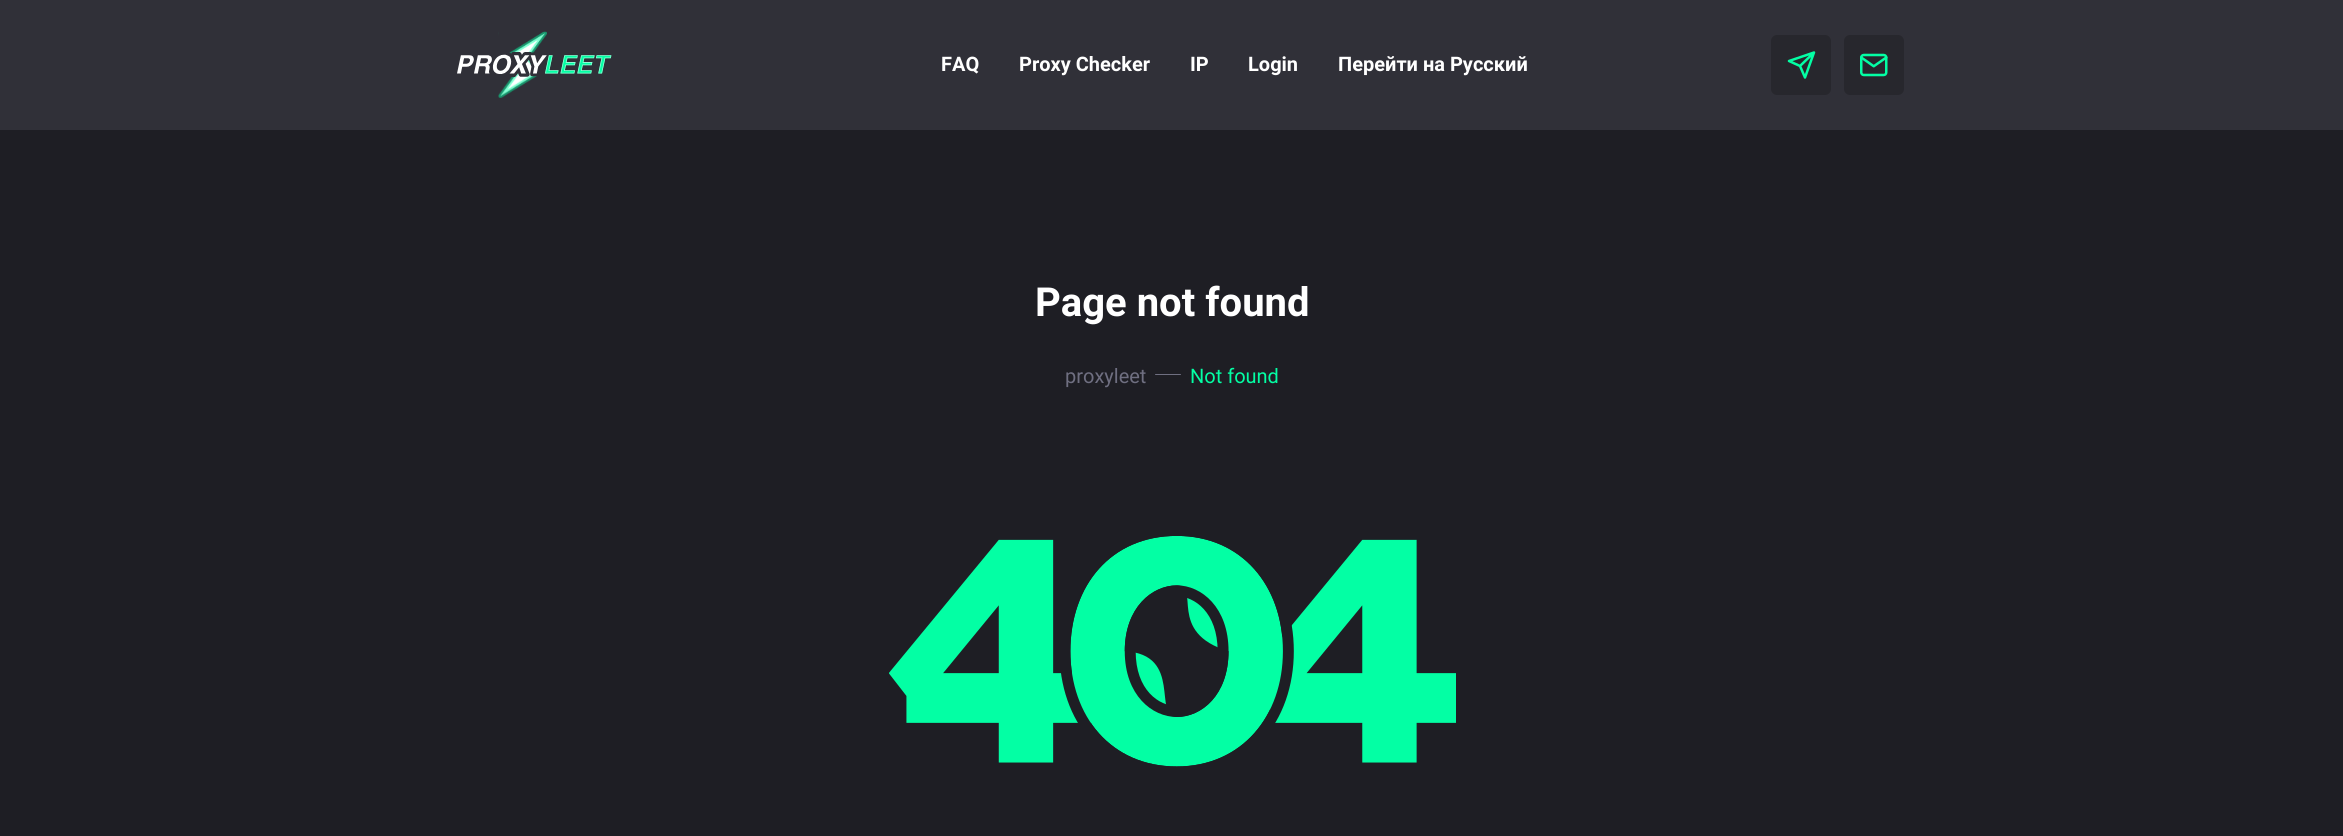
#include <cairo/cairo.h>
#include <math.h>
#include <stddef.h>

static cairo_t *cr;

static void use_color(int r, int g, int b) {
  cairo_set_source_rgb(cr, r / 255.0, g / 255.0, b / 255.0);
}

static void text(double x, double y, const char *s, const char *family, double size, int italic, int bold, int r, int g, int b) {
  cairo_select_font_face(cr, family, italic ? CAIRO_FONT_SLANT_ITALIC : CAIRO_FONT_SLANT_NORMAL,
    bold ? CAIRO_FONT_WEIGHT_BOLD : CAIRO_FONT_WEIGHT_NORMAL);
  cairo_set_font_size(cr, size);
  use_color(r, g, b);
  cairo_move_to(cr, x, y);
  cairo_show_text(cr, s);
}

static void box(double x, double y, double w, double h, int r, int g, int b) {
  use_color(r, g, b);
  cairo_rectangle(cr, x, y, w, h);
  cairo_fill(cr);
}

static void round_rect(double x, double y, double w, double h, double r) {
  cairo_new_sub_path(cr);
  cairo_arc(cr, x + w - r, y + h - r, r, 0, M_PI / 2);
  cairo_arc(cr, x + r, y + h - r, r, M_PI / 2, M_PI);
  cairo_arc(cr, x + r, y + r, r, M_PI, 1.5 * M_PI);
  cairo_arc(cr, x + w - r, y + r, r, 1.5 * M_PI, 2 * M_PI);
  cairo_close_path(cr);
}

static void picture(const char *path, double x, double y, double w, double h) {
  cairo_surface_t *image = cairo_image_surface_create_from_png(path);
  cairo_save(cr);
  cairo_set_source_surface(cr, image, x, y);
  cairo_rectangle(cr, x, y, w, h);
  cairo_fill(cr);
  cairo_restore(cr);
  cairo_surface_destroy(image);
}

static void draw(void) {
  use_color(30, 30, 36);
  cairo_paint(cr);
  box(0, 0, 2343, 130, 48, 48, 56);
  picture("img_01.png", 457, 31, 155, 67);
  use_color(39, 39, 45);
  round_rect(1772.5, 36.5, 57, 57, 4.5);
  cairo_fill_preserve(cr);
  cairo_set_line_width(cr, 3);
  cairo_stroke(cr);
  cairo_new_path(cr);
  cairo_move_to(cr, 1814, 52.5);
  cairo_line_to(cr, 1800, 66);
  cairo_move_to(cr, 1814, 52.5);
  cairo_line_to(cr, 1805, 77.5);
  cairo_line_to(cr, 1800, 66);
  cairo_line_to(cr, 1789, 61);
  cairo_close_path(cr);
  use_color(3, 255, 164);
  cairo_set_line_width(cr, 2.5);
  cairo_set_line_cap(cr, CAIRO_LINE_CAP_ROUND);
  cairo_set_line_join(cr, CAIRO_LINE_JOIN_ROUND);
  cairo_stroke(cr);
  use_color(39, 39, 45);
  round_rect(1845.5, 36.5, 57, 57, 4.5);
  cairo_fill_preserve(cr);
  cairo_set_line_width(cr, 3);
  cairo_set_line_cap(cr, CAIRO_LINE_CAP_BUTT);
  cairo_set_line_join(cr, CAIRO_LINE_JOIN_MITER);
  cairo_stroke(cr);
  picture("img_02.png", 1860, 53, 28, 24);
  use_color(111, 111, 129);
  round_rect(1155, 374, 26, 1, 0.5);
  cairo_fill(cr);
  picture("img_03.png", 889, 536, 567, 231);
  text(941, 71, "FAQ", "Roboto", 20, 0, 1, 255, 255, 255);
  text(1019, 71, "Proxy Checker", "Roboto", 20, 0, 1, 255, 255, 255);
  text(1190, 71, "IP", "Roboto", 20, 0, 1, 255, 255, 255);
  text(1248, 71, "Login", "Roboto", 20, 0, 1, 255, 255, 255);
  text(1338, 71, "Перейти на Русский", "Roboto", 20, 0, 1, 255, 255, 255);
  text(1035, 316, "Page not found", "Roboto", 40, 0, 1, 255, 255, 255);
  text(1065, 383, "proxyleet", "Roboto", 20, 0, 0, 111, 111, 129);
  text(1190, 383, "Not found", "Roboto", 20, 0, 0, 3, 255, 164);
}

int main(void) {
  cairo_surface_t *surface = cairo_image_surface_create(CAIRO_FORMAT_RGB24, 2343, 836);
  cr = cairo_create(surface);
  cairo_font_options_t *options = cairo_font_options_create();
  cairo_font_options_set_hint_metrics(options, CAIRO_HINT_METRICS_OFF);
  cairo_font_options_set_hint_style(options, CAIRO_HINT_STYLE_NONE);
  cairo_set_font_options(cr, options);
  cairo_set_miter_limit(cr, 4);
  draw();
  cairo_surface_write_to_png(surface, "out.png");
  cairo_font_options_destroy(options);
  cairo_destroy(cr);
  cairo_surface_destroy(surface);
  return 0;
}
